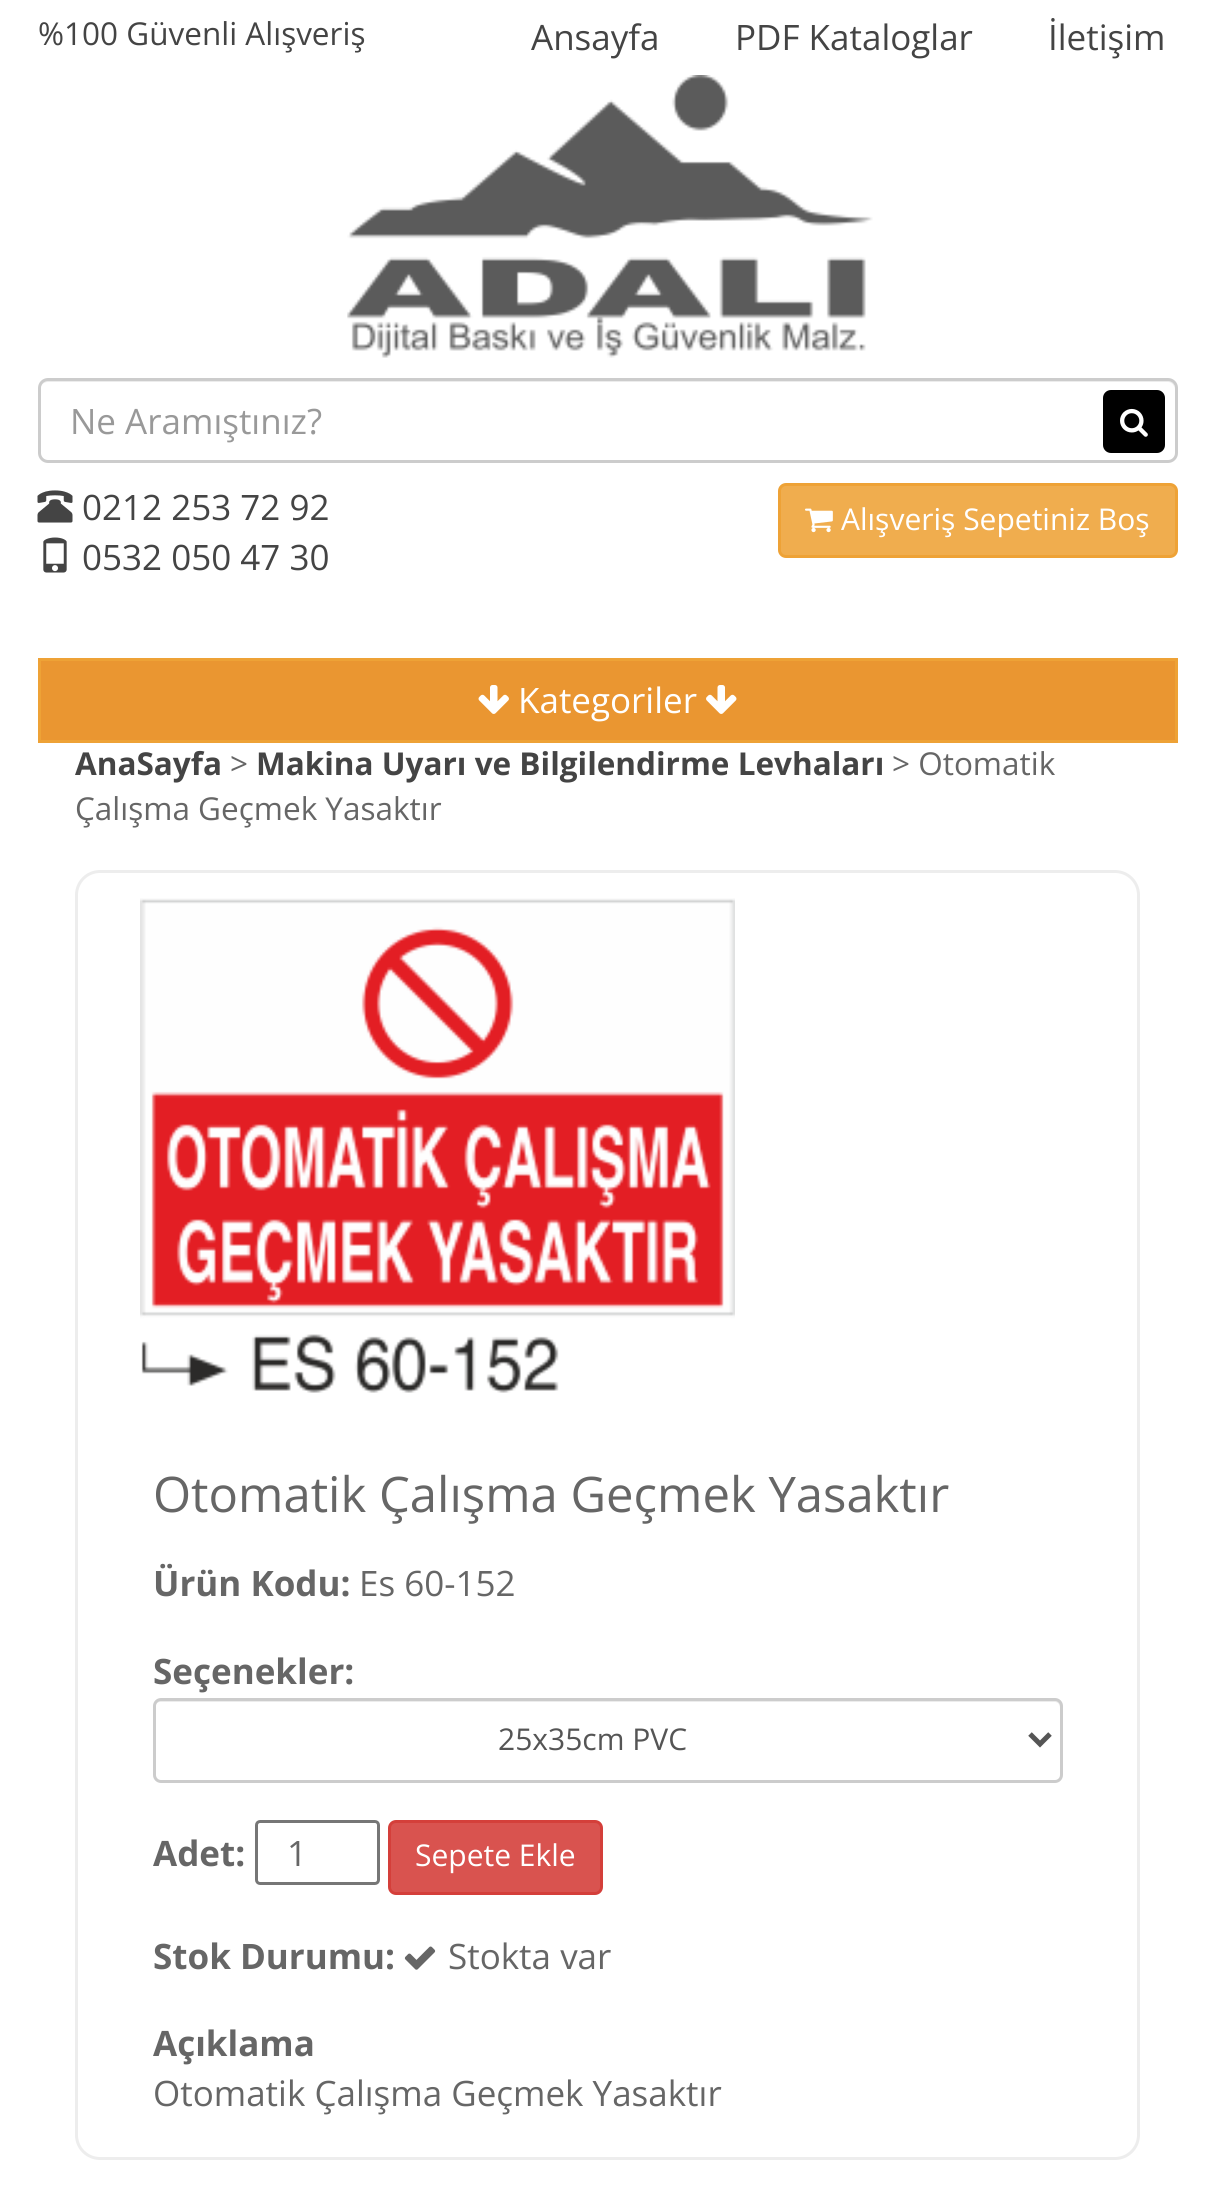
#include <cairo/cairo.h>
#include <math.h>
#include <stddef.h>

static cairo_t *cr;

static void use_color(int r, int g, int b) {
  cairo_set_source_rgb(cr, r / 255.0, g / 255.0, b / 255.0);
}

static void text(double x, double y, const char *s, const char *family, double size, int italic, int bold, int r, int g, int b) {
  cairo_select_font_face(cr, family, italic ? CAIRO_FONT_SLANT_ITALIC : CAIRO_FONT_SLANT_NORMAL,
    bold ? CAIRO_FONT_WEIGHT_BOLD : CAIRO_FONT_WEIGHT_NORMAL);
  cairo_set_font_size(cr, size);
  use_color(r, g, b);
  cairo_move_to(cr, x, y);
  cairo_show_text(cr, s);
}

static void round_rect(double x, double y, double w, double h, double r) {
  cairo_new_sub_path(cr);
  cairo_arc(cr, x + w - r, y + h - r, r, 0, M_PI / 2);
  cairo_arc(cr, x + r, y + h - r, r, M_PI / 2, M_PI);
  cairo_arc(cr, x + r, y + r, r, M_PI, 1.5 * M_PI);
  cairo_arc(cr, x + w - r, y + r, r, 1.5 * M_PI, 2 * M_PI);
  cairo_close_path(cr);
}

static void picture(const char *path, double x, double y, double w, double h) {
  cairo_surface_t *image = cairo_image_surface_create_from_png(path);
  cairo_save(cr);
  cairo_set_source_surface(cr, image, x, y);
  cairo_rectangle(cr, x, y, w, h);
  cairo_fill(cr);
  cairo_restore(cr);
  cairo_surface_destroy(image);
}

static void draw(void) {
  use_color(255, 255, 255);
  cairo_paint(cr);
  picture("img_01.png", 347, 75, 526, 283);
  use_color(236, 236, 236);
  cairo_new_path(cr);
  cairo_move_to(cr, 48, 382);
  cairo_line_to(cr, 1168, 382);
  cairo_curve_to(cr, 1172, 382, 1175, 386, 1175, 390);
  cairo_curve_to(cr, 1175, 385, 1173, 380, 1167, 380);
  cairo_line_to(cr, 48, 380);
  cairo_curve_to(cr, 42, 380, 40, 385, 40, 390);
  cairo_curve_to(cr, 40, 386, 43, 382, 48, 382);
  cairo_close_path(cr);
  cairo_fill(cr);
  round_rect(39.5, 379.5, 1137, 82, 8.5);
  use_color(204, 204, 204);
  cairo_set_line_width(cr, 3);
  cairo_stroke(cr);
  use_color(0, 0, 0);
  round_rect(1104.5, 391.5, 59, 60, 6.5);
  cairo_fill_preserve(cr);
  cairo_stroke(cr);
  picture("img_02.png", 1120, 408, 28, 29);
  picture("img_03.png", 37, 490, 36, 33);
  picture("img_04.png", 43, 537, 24, 36);
  use_color(240, 173, 78);
  round_rect(779.5, 484.5, 397, 72, 6.5);
  cairo_fill_preserve(cr);
  use_color(238, 162, 54);
  cairo_stroke(cr);
  picture("img_05.png", 805, 508, 28, 25);
  use_color(234, 150, 49);
  cairo_rectangle(cr, 39.5, 659.5, 1137, 82);
  cairo_fill_preserve(cr);
  use_color(238, 162, 54);
  cairo_stroke(cr);
  picture("img_06.png", 478, 685, 31, 29);
  picture("img_07.png", 706, 685, 31, 29);
  round_rect(76.5, 871.5, 1062, 1287, 23.5);
  use_color(237, 237, 237);
  cairo_stroke(cr);
  picture("img_08.png", 140, 898, 595, 495);
  use_color(236, 236, 236);
  cairo_new_path(cr);
  cairo_move_to(cr, 160, 1702);
  cairo_line_to(cr, 1055, 1702);
  cairo_curve_to(cr, 1058, 1702, 1060, 1705, 1060, 1708);
  cairo_line_to(cr, 1060, 1705);
  cairo_curve_to(cr, 1060, 1702, 1058, 1700, 1055, 1700);
  cairo_line_to(cr, 160, 1700);
  cairo_curve_to(cr, 157, 1700, 155, 1702, 155, 1705);
  cairo_line_to(cr, 155, 1708);
  cairo_curve_to(cr, 155, 1705, 157, 1702, 160, 1702);
  cairo_close_path(cr);
  cairo_fill(cr);
  round_rect(154.5, 1699.5, 907, 82, 6.5);
  use_color(204, 204, 204);
  cairo_stroke(cr);
  cairo_new_path(cr);
  cairo_move_to(cr, 1030, 1734);
  cairo_line_to(cr, 1040, 1744);
  cairo_line_to(cr, 1050, 1734);
  use_color(85, 85, 85);
  cairo_set_line_width(cr, 5);
  cairo_stroke(cr);
  round_rect(256.5, 1821.5, 122, 62, 3.5);
  use_color(118, 118, 118);
  cairo_set_line_width(cr, 3);
  cairo_stroke(cr);
  use_color(217, 83, 79);
  round_rect(389.5, 1821.5, 212, 72, 6.5);
  cairo_fill_preserve(cr);
  use_color(212, 63, 58);
  cairo_stroke(cr);
  picture("img_09.png", 404, 1946, 32, 24);
  text(38, 45, "%100 Güvenli Alışveriş", "Open Sans", 31.5, 0, 0, 68, 68, 68);
  text(531, 50, "Ansayfa", "Open Sans", 35, 0, 0, 68, 68, 68);
  text(735, 50, "PDF Kataloglar", "Open Sans", 35, 0, 0, 68, 68, 68);
  text(1048, 50, "İletişim", "Open Sans", 35, 0, 0, 68, 68, 68);
  text(70, 434, "Ne Aramıştınız?", "Open Sans", 35, 0, 0, 153, 153, 153);
  text(82, 520, "0212 253 72 92", "Open Sans", 35, 0, 0, 68, 68, 68);
  text(82, 570, "0532 050 47 30", "Open Sans", 35, 0, 0, 68, 68, 68);
  text(841, 530, "Alışveriş Sepetiniz Boş", "Open Sans", 30, 0, 0, 255, 255, 255);
  text(518, 713, "Kategoriler", "Open Sans", 35, 0, 0, 255, 255, 255);
  text(75, 775, "AnaSayfa", "Open Sans", 31.5, 0, 1, 68, 68, 68);
  text(230, 775, ">", "Open Sans", 31.5, 0, 0, 102, 102, 102);
  text(256, 775, "Makina Uyarı ve Bilgilendirme Levhaları", "Open Sans", 31.5, 0, 1, 68, 68, 68);
  text(892, 775, "> Otomatik", "Open Sans", 31.5, 0, 0, 102, 102, 102);
  text(75, 820, "Çalışma Geçmek Yasaktır", "Open Sans", 31.5, 0, 0, 102, 102, 102);
  text(153, 1512, "Otomatik Çalışma Geçmek Yasaktır", "Open Sans", 49, 0, 0, 102, 102, 102);
  text(153, 1596, "Ürün Kodu:", "Open Sans", 35, 0, 1, 102, 102, 102);
  text(359, 1596, "Es 60-152", "Open Sans", 35, 0, 0, 102, 102, 102);
  text(153, 1684, "Seçenekler:", "Open Sans", 35, 0, 1, 102, 102, 102);
  text(498, 1750, "25x35cm PVC", "Open Sans", 30, 0, 0, 85, 85, 85);
  text(153, 1866, "Adet:", "Open Sans", 35, 0, 1, 102, 102, 102);
  text(287, 1866, "1", "Open Sans", 35, 0, 0, 102, 102, 102);
  text(415, 1866, "Sepete Ekle", "Open Sans", 30, 0, 0, 255, 255, 255);
  text(153, 1969, "Stok Durumu:", "Open Sans", 35, 0, 1, 102, 102, 102);
  text(448, 1969, "Stokta var", "Open Sans", 35, 0, 0, 102, 102, 102);
  text(153, 2056, "Açıklama", "Open Sans", 35, 0, 1, 102, 102, 102);
  text(153, 2106, "Otomatik Çalışma Geçmek Yasaktır", "Open Sans", 35, 0, 0, 102, 102, 102);
}

int main(void) {
  cairo_surface_t *surface = cairo_image_surface_create(CAIRO_FORMAT_RGB24, 1213, 2190);
  cr = cairo_create(surface);
  cairo_font_options_t *options = cairo_font_options_create();
  cairo_font_options_set_hint_metrics(options, CAIRO_HINT_METRICS_OFF);
  cairo_font_options_set_hint_style(options, CAIRO_HINT_STYLE_NONE);
  cairo_set_font_options(cr, options);
  cairo_set_miter_limit(cr, 4);
  draw();
  cairo_surface_write_to_png(surface, "out.png");
  cairo_font_options_destroy(options);
  cairo_destroy(cr);
  cairo_surface_destroy(surface);
  return 0;
}
